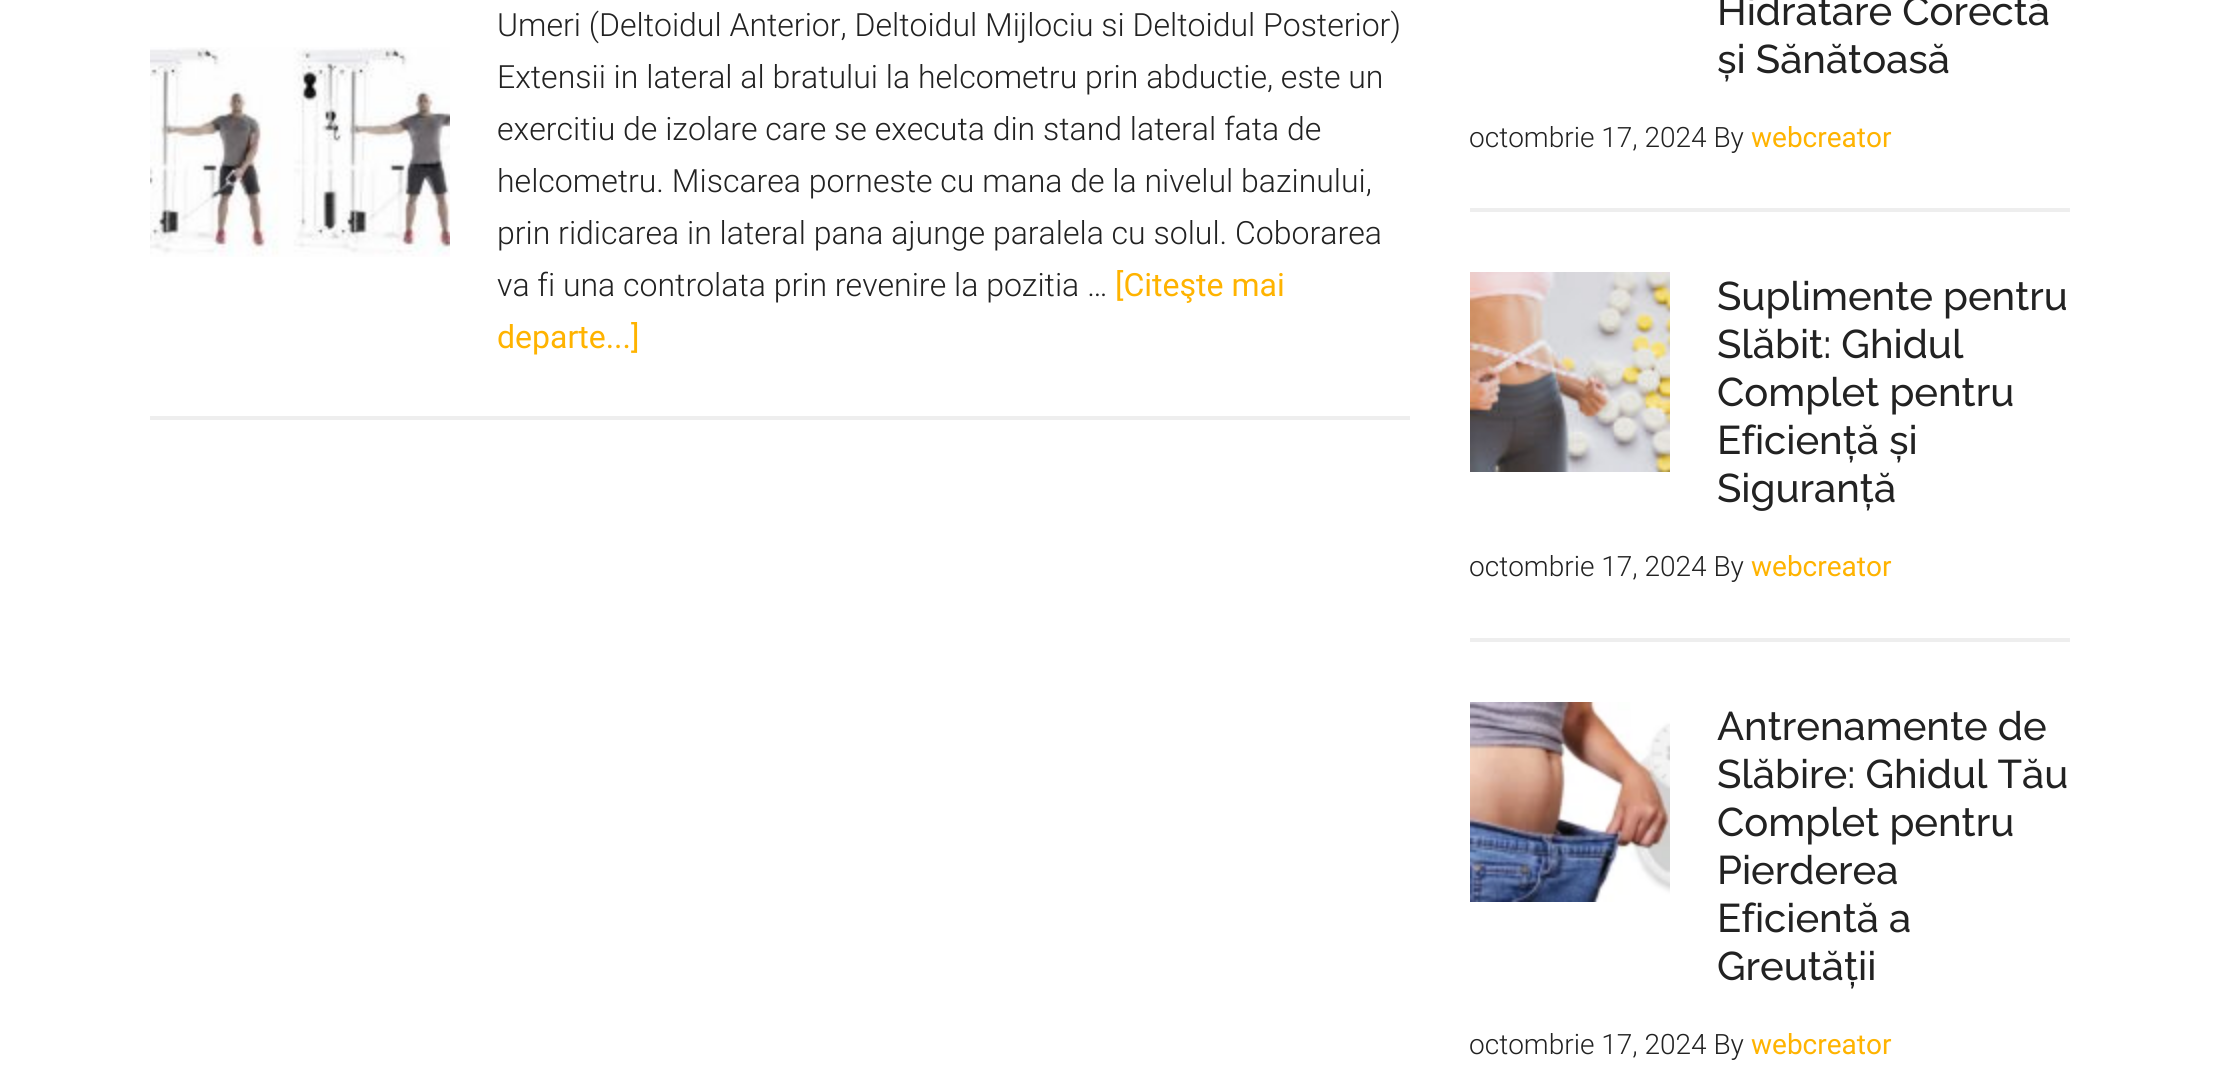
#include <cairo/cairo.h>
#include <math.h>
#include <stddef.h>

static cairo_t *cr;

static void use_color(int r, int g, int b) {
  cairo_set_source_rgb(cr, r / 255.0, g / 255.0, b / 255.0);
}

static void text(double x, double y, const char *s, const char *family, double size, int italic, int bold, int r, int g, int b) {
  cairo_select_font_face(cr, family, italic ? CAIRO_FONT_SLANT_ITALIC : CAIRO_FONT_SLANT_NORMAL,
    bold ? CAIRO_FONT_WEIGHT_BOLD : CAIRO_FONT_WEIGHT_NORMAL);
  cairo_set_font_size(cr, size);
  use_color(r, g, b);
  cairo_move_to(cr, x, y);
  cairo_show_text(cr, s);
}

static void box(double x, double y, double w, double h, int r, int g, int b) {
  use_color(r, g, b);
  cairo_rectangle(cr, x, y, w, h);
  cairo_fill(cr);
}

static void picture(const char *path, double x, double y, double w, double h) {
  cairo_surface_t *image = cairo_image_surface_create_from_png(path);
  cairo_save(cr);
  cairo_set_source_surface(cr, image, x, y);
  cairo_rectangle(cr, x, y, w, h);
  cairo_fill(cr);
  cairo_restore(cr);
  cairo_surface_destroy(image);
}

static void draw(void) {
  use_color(255, 255, 255);
  cairo_paint(cr);
  box(150, 416, 1260, 4, 238, 238, 238);
  picture("img_01.png", 150, 47, 300, 210);
  box(1470, 208, 600, 4, 238, 238, 238);
  box(1470, 638, 600, 4, 238, 238, 238);
  picture("img_02.png", 1470, 272, 200, 200);
  picture("img_03.png", 1470, 702, 200, 200);
  text(497, 36, "Umeri (Deltoidul Anterior, Deltoidul Mijlociu si Deltoidul Posterior)", "Roboto Light", 32, 0, 0, 34, 34, 34);
  text(497, 88, "Extensii in lateral al bratului la helcometru prin abductie, este un", "Roboto Light", 32, 0, 0, 34, 34, 34);
  text(497, 140, "exercitiu de izolare care se executa din stand lateral fata de", "Roboto Light", 32, 0, 0, 34, 34, 34);
  text(497, 192, "helcometru. Miscarea porneste cu mana de la nivelul bazinului,", "Roboto Light", 32, 0, 0, 34, 34, 34);
  text(497, 244, "prin ridicarea in lateral pana ajunge paralela cu solul. Coborarea", "Roboto Light", 32, 0, 0, 34, 34, 34);
  text(497, 296, "va fi una controlata prin revenire la pozitia …", "Roboto Light", 32, 0, 0, 34, 34, 34);
  text(1115, 296, "[Citeşte mai", "Roboto", 32, 0, 0, 255, 179, 0);
  text(497, 348, "departe...]", "Roboto", 32, 0, 0, 255, 179, 0);
  text(1717, 25, "Hidratare Corectă", "Raleway Medium", 40, 0, 0, 34, 34, 34);
  text(1717, 73, "și Sănătoasă", "Raleway Medium", 40, 0, 0, 34, 34, 34);
  text(1469, 147, "octombrie 17, 2024 By", "Roboto Light", 28, 0, 0, 34, 34, 34);
  text(1751, 147, "webcreator", "Roboto", 28, 0, 0, 255, 179, 0);
  text(1717, 310, "Suplimente pentru", "Raleway Medium", 40, 0, 0, 34, 34, 34);
  text(1717, 358, "Slăbit: Ghidul", "Raleway Medium", 40, 0, 0, 34, 34, 34);
  text(1717, 406, "Complet pentru", "Raleway Medium", 40, 0, 0, 34, 34, 34);
  text(1717, 454, "Eficiență și", "Raleway Medium", 40, 0, 0, 34, 34, 34);
  text(1717, 502, "Siguranță", "Raleway Medium", 40, 0, 0, 34, 34, 34);
  text(1469, 576, "octombrie 17, 2024 By", "Roboto Light", 28, 0, 0, 34, 34, 34);
  text(1751, 576, "webcreator", "Roboto", 28, 0, 0, 255, 179, 0);
  text(1717, 740, "Antrenamente de", "Raleway Medium", 40, 0, 0, 34, 34, 34);
  text(1717, 788, "Slăbire: Ghidul Tău", "Raleway Medium", 40, 0, 0, 34, 34, 34);
  text(1717, 836, "Complet pentru", "Raleway Medium", 40, 0, 0, 34, 34, 34);
  text(1717, 884, "Pierderea", "Raleway Medium", 40, 0, 0, 34, 34, 34);
  text(1717, 932, "Eficientă a", "Raleway Medium", 40, 0, 0, 34, 34, 34);
  text(1717, 980, "Greutății", "Raleway Medium", 40, 0, 0, 34, 34, 34);
  text(1469, 1054, "octombrie 17, 2024 By", "Roboto Light", 28, 0, 0, 34, 34, 34);
  text(1751, 1054, "webcreator", "Roboto", 28, 0, 0, 255, 179, 0);
}

int main(void) {
  cairo_surface_t *surface = cairo_image_surface_create(CAIRO_FORMAT_RGB24, 2217, 1070);
  cr = cairo_create(surface);
  cairo_font_options_t *options = cairo_font_options_create();
  cairo_font_options_set_hint_metrics(options, CAIRO_HINT_METRICS_OFF);
  cairo_font_options_set_hint_style(options, CAIRO_HINT_STYLE_NONE);
  cairo_set_font_options(cr, options);
  cairo_set_miter_limit(cr, 4);
  draw();
  cairo_surface_write_to_png(surface, "out.png");
  cairo_font_options_destroy(options);
  cairo_destroy(cr);
  cairo_surface_destroy(surface);
  return 0;
}
